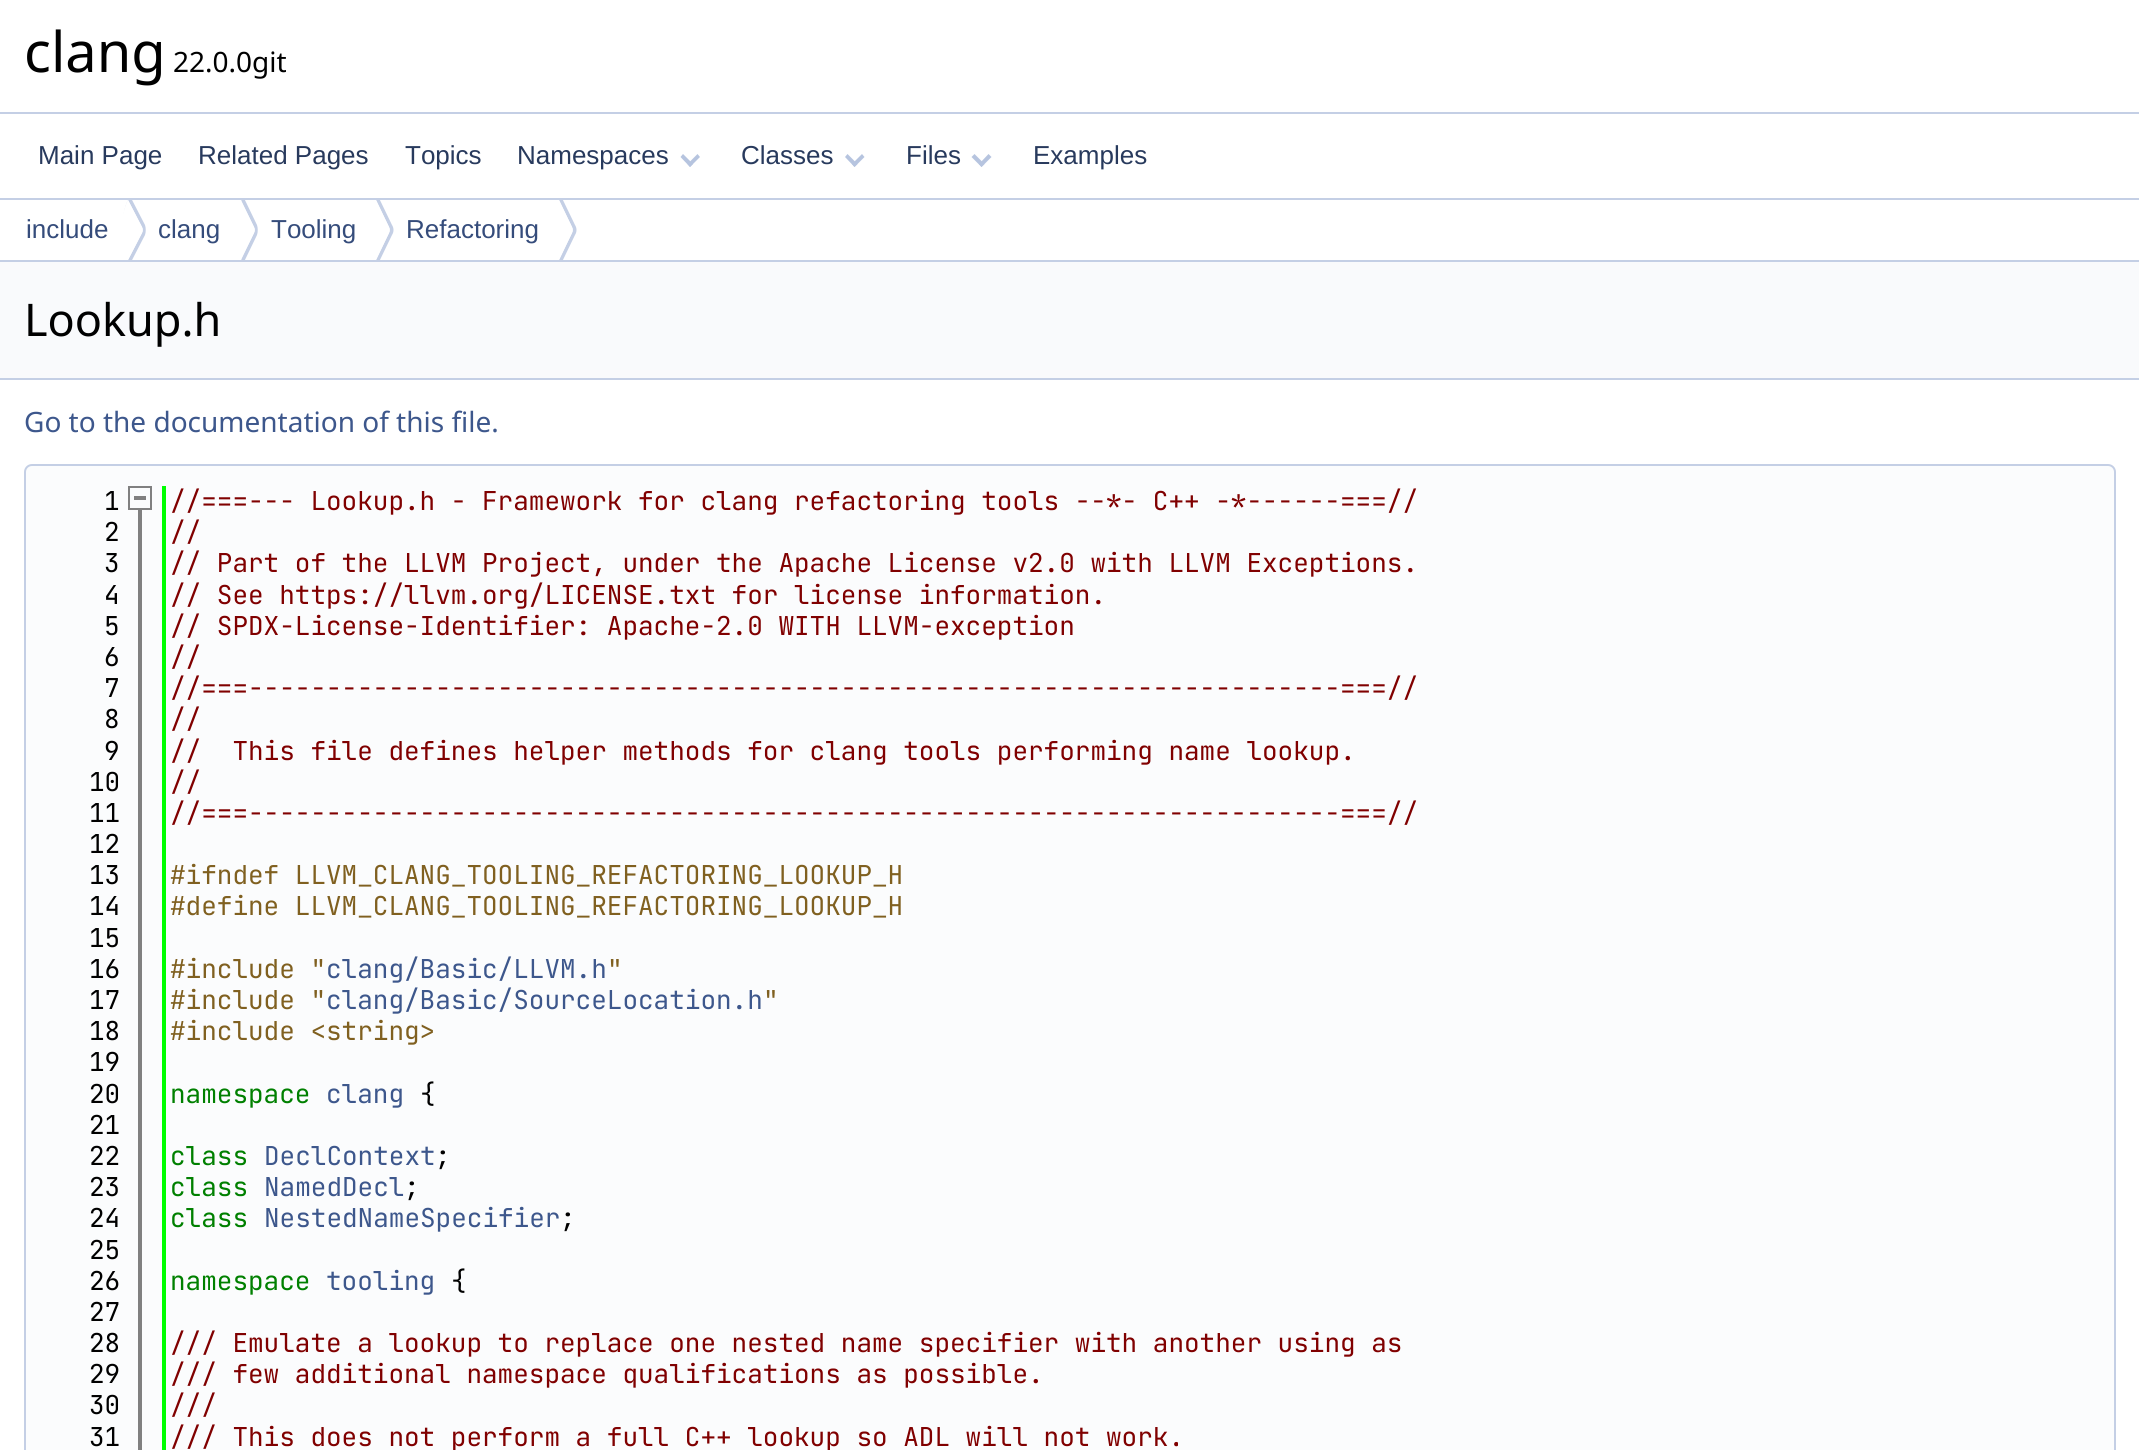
#include <cairo/cairo.h>
#include <math.h>
#include <stddef.h>

static cairo_t *cr;

static void use_color(int r, int g, int b) {
  cairo_set_source_rgb(cr, r / 255.0, g / 255.0, b / 255.0);
}

static void text(double x, double y, const char *s, const char *family, double size, int italic, int bold, int r, int g, int b) {
  cairo_select_font_face(cr, family, italic ? CAIRO_FONT_SLANT_ITALIC : CAIRO_FONT_SLANT_NORMAL,
    bold ? CAIRO_FONT_WEIGHT_BOLD : CAIRO_FONT_WEIGHT_NORMAL);
  cairo_set_font_size(cr, size);
  use_color(r, g, b);
  cairo_move_to(cr, x, y);
  cairo_show_text(cr, s);
}

static void box(double x, double y, double w, double h, int r, int g, int b) {
  use_color(r, g, b);
  cairo_rectangle(cr, x, y, w, h);
  cairo_fill(cr);
}

static void round_rect(double x, double y, double w, double h, double r) {
  cairo_new_sub_path(cr);
  cairo_arc(cr, x + w - r, y + h - r, r, 0, M_PI / 2);
  cairo_arc(cr, x + r, y + h - r, r, M_PI / 2, M_PI);
  cairo_arc(cr, x + r, y + r, r, M_PI, 1.5 * M_PI);
  cairo_arc(cr, x + w - r, y + r, r, 1.5 * M_PI, 2 * M_PI);
  cairo_close_path(cr);
}

static void draw(void) {
  use_color(255, 255, 255);
  cairo_paint(cr);
  box(0, 112, 2139, 2, 196, 207, 229);
  box(0, 198, 2139, 2, 196, 207, 229);
  use_color(182, 196, 223);
  cairo_new_path(cr);
  cairo_move_to(cr, 697.5, 154);
  cairo_line_to(cr, 700, 157);
  cairo_line_to(cr, 690, 167);
  cairo_line_to(cr, 687.5, 164);
  cairo_close_path(cr);
  cairo_fill(cr);
  cairo_new_path(cr);
  cairo_move_to(cr, 683, 154);
  cairo_line_to(cr, 693, 164);
  cairo_line_to(cr, 690, 167);
  cairo_line_to(cr, 680.5, 157);
  cairo_close_path(cr);
  cairo_fill(cr);
  cairo_new_path(cr);
  cairo_move_to(cr, 862, 154);
  cairo_line_to(cr, 864.5, 157);
  cairo_line_to(cr, 854.5, 167);
  cairo_line_to(cr, 852, 164);
  cairo_close_path(cr);
  cairo_fill(cr);
  cairo_new_path(cr);
  cairo_move_to(cr, 847.5, 154);
  cairo_line_to(cr, 857.5, 164);
  cairo_line_to(cr, 854.5, 167);
  cairo_line_to(cr, 845, 157);
  cairo_close_path(cr);
  cairo_fill(cr);
  cairo_new_path(cr);
  cairo_move_to(cr, 988.5, 154);
  cairo_line_to(cr, 991.5, 157);
  cairo_line_to(cr, 981.5, 167);
  cairo_line_to(cr, 979, 164);
  cairo_close_path(cr);
  cairo_fill(cr);
  cairo_new_path(cr);
  cairo_move_to(cr, 974.5, 154);
  cairo_line_to(cr, 984.5, 164);
  cairo_line_to(cr, 981.5, 167);
  cairo_line_to(cr, 971.5, 157);
  cairo_close_path(cr);
  cairo_fill(cr);
  box(0, 260, 2139, 2, 196, 207, 229);
  cairo_save(cr);
  cairo_rectangle(cr, 0, 200, 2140, 60);
  cairo_clip(cr);
  cairo_new_path(cr);
  cairo_move_to(cr, 130, 196);
  cairo_curve_to(cr, 126, 204, 123, 212, 123, 222);
  cairo_curve_to(cr, 123, 214, 125, 206, 128, 200);
  cairo_line_to(cr, 142, 227);
  cairo_curve_to(cr, 143, 229, 143, 231, 142, 233);
  cairo_line_to(cr, 128, 260);
  cairo_line_to(cr, 128, 259);
  cairo_line_to(cr, 130, 264);
  cairo_line_to(cr, 145, 235);
  cairo_curve_to(cr, 146, 232, 146, 228, 145, 225);
  cairo_close_path(cr);
  cairo_fill(cr);
  cairo_restore(cr);
  use_color(255, 255, 255);
  cairo_new_path(cr);
  cairo_move_to(cr, 128, 200);
  cairo_line_to(cr, 142, 227);
  cairo_curve_to(cr, 143, 229, 143, 231, 142, 233);
  cairo_line_to(cr, 128, 260);
  cairo_curve_to(cr, 120, 243, 120, 217, 128, 200);
  cairo_close_path(cr);
  cairo_fill(cr);
  cairo_save(cr);
  cairo_rectangle(cr, 0, 200, 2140, 60);
  cairo_clip(cr);
  use_color(196, 207, 229);
  cairo_new_path(cr);
  cairo_move_to(cr, 243, 196);
  cairo_line_to(cr, 241, 201);
  cairo_line_to(cr, 254, 227);
  cairo_curve_to(cr, 255, 229, 255, 231, 254, 233);
  cairo_line_to(cr, 241, 259);
  cairo_line_to(cr, 243, 264);
  cairo_line_to(cr, 257, 235);
  cairo_curve_to(cr, 258, 232, 258, 228, 257, 225);
  cairo_close_path(cr);
  cairo_fill(cr);
  cairo_restore(cr);
  cairo_new_path(cr);
  cairo_move_to(cr, 241, 200);
  cairo_line_to(cr, 254, 227);
  cairo_curve_to(cr, 255, 229, 255, 231, 254, 233);
  cairo_line_to(cr, 241, 260);
  cairo_curve_to(cr, 232, 243, 232, 217, 241, 200);
  cairo_close_path(cr);
  cairo_fill(cr);
  cairo_save(cr);
  cairo_rectangle(cr, 0, 200, 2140, 60);
  cairo_clip(cr);
  use_color(196, 207, 229);
  cairo_new_path(cr);
  cairo_move_to(cr, 378, 196);
  cairo_line_to(cr, 376, 200);
  cairo_line_to(cr, 389, 227);
  cairo_curve_to(cr, 390, 229, 390, 231, 389, 233);
  cairo_line_to(cr, 376, 260);
  cairo_line_to(cr, 378, 264);
  cairo_line_to(cr, 392, 235);
  cairo_curve_to(cr, 394, 232, 394, 228, 392, 225);
  cairo_close_path(cr);
  cairo_fill(cr);
  cairo_restore(cr);
  cairo_new_path(cr);
  cairo_move_to(cr, 376, 200);
  cairo_line_to(cr, 389, 227);
  cairo_curve_to(cr, 390, 229, 390, 231, 389, 233);
  cairo_line_to(cr, 376, 260);
  cairo_curve_to(cr, 368, 243, 368, 217, 376, 200);
  cairo_close_path(cr);
  cairo_fill(cr);
  cairo_save(cr);
  cairo_rectangle(cr, 0, 200, 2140, 60);
  cairo_clip(cr);
  use_color(196, 207, 229);
  cairo_new_path(cr);
  cairo_move_to(cr, 561, 196);
  cairo_line_to(cr, 559, 200);
  cairo_line_to(cr, 572, 227);
  cairo_curve_to(cr, 573, 229, 573, 231, 572, 233);
  cairo_line_to(cr, 559, 260);
  cairo_line_to(cr, 561, 264);
  cairo_line_to(cr, 575, 235);
  cairo_curve_to(cr, 577, 232, 577, 228, 575, 225);
  cairo_close_path(cr);
  cairo_fill(cr);
  cairo_restore(cr);
  cairo_new_path(cr);
  cairo_move_to(cr, 559, 200);
  cairo_line_to(cr, 572, 227);
  cairo_curve_to(cr, 573, 229, 573, 231, 572, 233);
  cairo_line_to(cr, 559, 260);
  cairo_curve_to(cr, 551, 243, 551, 217, 559, 200);
  cairo_close_path(cr);
  cairo_fill(cr);
  box(0, 262, 2139, 116, 249, 250, 252);
  box(0, 378, 2139, 2, 196, 207, 229);
  use_color(251, 252, 253);
  round_rect(25, 465, 2090, 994, 7);
  cairo_fill_preserve(cr);
  use_color(196, 207, 229);
  cairo_stroke(cr);
  box(138, 510, 4, 940, 128, 128, 128);
  box(162, 486, 4, 964, 0, 255, 0);
  cairo_rectangle(cr, 129, 487, 22, 22);
  use_color(128, 128, 128);
  cairo_stroke(cr);
  box(134, 496, 12, 4, 128, 128, 128);
  text(24, 72, "clang", "Noto Sans", 56, 0, 0, 0, 0, 0);
  text(173, 72, "22.0.0git", "Noto Sans", 28, 0, 0, 0, 0, 0);
  text(38, 164, "Main Page", "Liberation Sans", 26, 0, 0, 40, 58, 93);
  text(198, 164, "Related Pages", "Liberation Sans", 26, 0, 0, 40, 58, 93);
  text(405, 164, "Topics", "Liberation Sans", 26, 0, 0, 40, 58, 93);
  text(517, 164, "Namespaces", "Liberation Sans", 26, 0, 0, 40, 58, 93);
  text(741, 164, "Classes", "Liberation Sans", 26, 0, 0, 40, 58, 93);
  text(906, 164, "Files", "Liberation Sans", 26, 0, 0, 40, 58, 93);
  text(1033, 164, "Examples", "Liberation Sans", 26, 0, 0, 40, 58, 93);
  text(26, 238, "include", "Liberation Sans", 26, 0, 0, 53, 76, 123);
  text(158, 238, "clang", "Liberation Sans", 26, 0, 0, 53, 76, 123);
  text(271, 238, "Tooling", "Liberation Sans", 26, 0, 0, 53, 76, 123);
  text(406, 238, "Refactoring", "Liberation Sans", 26, 0, 0, 53, 76, 123);
  text(24, 336, "Lookup.h", "Noto Sans", 45, 0, 0, 0, 0, 0);
  text(24, 432, "Go to the documentation of this file.", "Noto Sans", 28, 0, 0, 61, 87, 140);
  text(104, 510, "1", "JetBrains Mono", 26, 0, 0, 0, 0, 0);
  text(170, 510, "//===--- Lookup.h - Framework for clang refactoring tools --*- C++ -*------===//", "JetBrains Mono", 26, 0, 0, 128, 0, 0);
  text(104, 541, "2", "JetBrains Mono", 26, 0, 0, 0, 0, 0);
  text(170, 541, "//", "JetBrains Mono", 26, 0, 0, 128, 0, 0);
  text(104, 572, "3", "JetBrains Mono", 26, 0, 0, 0, 0, 0);
  text(170, 572, "// Part of the LLVM Project, under the Apache License v2.0 with LLVM Exceptions.", "JetBrains Mono", 26, 0, 0, 128, 0, 0);
  text(104, 604, "4", "JetBrains Mono", 26, 0, 0, 0, 0, 0);
  text(170, 604, "// See https://llvm.org/LICENSE.txt for license information.", "JetBrains Mono", 26, 0, 0, 128, 0, 0);
  text(104, 635, "5", "JetBrains Mono", 26, 0, 0, 0, 0, 0);
  text(170, 635, "// SPDX-License-Identifier: Apache-2.0 WITH LLVM-exception", "JetBrains Mono", 26, 0, 0, 128, 0, 0);
  text(104, 666, "6", "JetBrains Mono", 26, 0, 0, 0, 0, 0);
  text(170, 666, "//", "JetBrains Mono", 26, 0, 0, 128, 0, 0);
  text(104, 697, "7", "JetBrains Mono", 26, 0, 0, 0, 0, 0);
  text(170, 697, "//===----------------------------------------------------------------------===//", "JetBrains Mono", 26, 0, 0, 128, 0, 0);
  text(104, 728, "8", "JetBrains Mono", 26, 0, 0, 0, 0, 0);
  text(170, 728, "//", "JetBrains Mono", 26, 0, 0, 128, 0, 0);
  text(104, 760, "9", "JetBrains Mono", 26, 0, 0, 0, 0, 0);
  text(170, 760, "//  This file defines helper methods for clang tools performing name lookup.", "JetBrains Mono", 26, 0, 0, 128, 0, 0);
  text(89, 791, "10", "JetBrains Mono", 26, 0, 0, 0, 0, 0);
  text(170, 791, "//", "JetBrains Mono", 26, 0, 0, 128, 0, 0);
  text(89, 822, "11", "JetBrains Mono", 26, 0, 0, 0, 0, 0);
  text(170, 822, "//===----------------------------------------------------------------------===//", "JetBrains Mono", 26, 0, 0, 128, 0, 0);
  text(89, 853, "12", "JetBrains Mono", 26, 0, 0, 0, 0, 0);
  text(89, 884, "13", "JetBrains Mono", 26, 0, 0, 0, 0, 0);
  text(170, 884, "#ifndef LLVM_CLANG_TOOLING_REFACTORING_LOOKUP_H", "JetBrains Mono", 26, 0, 0, 128, 96, 32);
  text(89, 915, "14", "JetBrains Mono", 26, 0, 0, 0, 0, 0);
  text(170, 915, "#define LLVM_CLANG_TOOLING_REFACTORING_LOOKUP_H", "JetBrains Mono", 26, 0, 0, 128, 96, 32);
  text(89, 947, "15", "JetBrains Mono", 26, 0, 0, 0, 0, 0);
  text(89, 978, "16", "JetBrains Mono", 26, 0, 0, 0, 0, 0);
  text(170, 978, "#include \"", "JetBrains Mono", 26, 0, 0, 128, 96, 32);
  text(326, 978, "clang/Basic/LLVM.h", "JetBrains Mono", 26, 0, 0, 61, 87, 140);
  text(607, 978, "\"", "JetBrains Mono", 26, 0, 0, 128, 96, 32);
  text(89, 1009, "17", "JetBrains Mono", 26, 0, 0, 0, 0, 0);
  text(170, 1009, "#include \"", "JetBrains Mono", 26, 0, 0, 128, 96, 32);
  text(326, 1009, "clang/Basic/SourceLocation.h", "JetBrains Mono", 26, 0, 0, 61, 87, 140);
  text(763, 1009, "\"", "JetBrains Mono", 26, 0, 0, 128, 96, 32);
  text(89, 1040, "18", "JetBrains Mono", 26, 0, 0, 0, 0, 0);
  text(170, 1040, "#include <string>", "JetBrains Mono", 26, 0, 0, 128, 96, 32);
  text(89, 1071, "19", "JetBrains Mono", 26, 0, 0, 0, 0, 0);
  text(89, 1103, "20", "JetBrains Mono", 26, 0, 0, 0, 0, 0);
  text(170, 1103, "namespace", "JetBrains Mono", 26, 0, 0, 0, 128, 0);
  text(326, 1103, "clang", "JetBrains Mono", 26, 0, 0, 61, 87, 140);
  text(420, 1103, "{", "JetBrains Mono", 26, 0, 0, 0, 0, 0);
  text(89, 1134, "21", "JetBrains Mono", 26, 0, 0, 0, 0, 0);
  text(89, 1165, "22", "JetBrains Mono", 26, 0, 0, 0, 0, 0);
  text(170, 1165, "class", "JetBrains Mono", 26, 0, 0, 0, 128, 0);
  text(264, 1165, "DeclContext", "JetBrains Mono", 26, 0, 0, 61, 87, 140);
  text(435, 1165, ";", "JetBrains Mono", 26, 0, 0, 0, 0, 0);
  text(89, 1196, "23", "JetBrains Mono", 26, 0, 0, 0, 0, 0);
  text(170, 1196, "class", "JetBrains Mono", 26, 0, 0, 0, 128, 0);
  text(264, 1196, "NamedDecl", "JetBrains Mono", 26, 0, 0, 61, 87, 140);
  text(404, 1196, ";", "JetBrains Mono", 26, 0, 0, 0, 0, 0);
  text(89, 1227, "24", "JetBrains Mono", 26, 0, 0, 0, 0, 0);
  text(170, 1227, "class", "JetBrains Mono", 26, 0, 0, 0, 128, 0);
  text(264, 1227, "NestedNameSpecifier", "JetBrains Mono", 26, 0, 0, 61, 87, 140);
  text(560, 1227, ";", "JetBrains Mono", 26, 0, 0, 0, 0, 0);
  text(89, 1259, "25", "JetBrains Mono", 26, 0, 0, 0, 0, 0);
  text(89, 1290, "26", "JetBrains Mono", 26, 0, 0, 0, 0, 0);
  text(170, 1290, "namespace", "JetBrains Mono", 26, 0, 0, 0, 128, 0);
  text(326, 1290, "tooling", "JetBrains Mono", 26, 0, 0, 61, 87, 140);
  text(451, 1290, "{", "JetBrains Mono", 26, 0, 0, 0, 0, 0);
  text(89, 1321, "27", "JetBrains Mono", 26, 0, 0, 0, 0, 0);
  text(89, 1352, "28", "JetBrains Mono", 26, 0, 0, 0, 0, 0);
  text(170, 1352, "/// Emulate a lookup to replace one nested name specifier with another using as", "JetBrains Mono", 26, 0, 0, 128, 0, 0);
  text(89, 1383, "29", "JetBrains Mono", 26, 0, 0, 0, 0, 0);
  text(170, 1383, "/// few additional namespace qualifications as possible.", "JetBrains Mono", 26, 0, 0, 128, 0, 0);
  text(89, 1414, "30", "JetBrains Mono", 26, 0, 0, 0, 0, 0);
  text(170, 1414, "///", "JetBrains Mono", 26, 0, 0, 128, 0, 0);
  text(89, 1446, "31", "JetBrains Mono", 26, 0, 0, 0, 0, 0);
  text(170, 1446, "/// This does not perform a full C++ lookup so ADL will not work.", "JetBrains Mono", 26, 0, 0, 128, 0, 0);
}

int main(void) {
  cairo_surface_t *surface = cairo_image_surface_create(CAIRO_FORMAT_RGB24, 2139, 1450);
  cr = cairo_create(surface);
  cairo_font_options_t *options = cairo_font_options_create();
  cairo_font_options_set_hint_metrics(options, CAIRO_HINT_METRICS_OFF);
  cairo_font_options_set_hint_style(options, CAIRO_HINT_STYLE_NONE);
  cairo_set_font_options(cr, options);
  cairo_set_miter_limit(cr, 4);
  draw();
  cairo_surface_write_to_png(surface, "out.png");
  cairo_font_options_destroy(options);
  cairo_destroy(cr);
  cairo_surface_destroy(surface);
  return 0;
}
